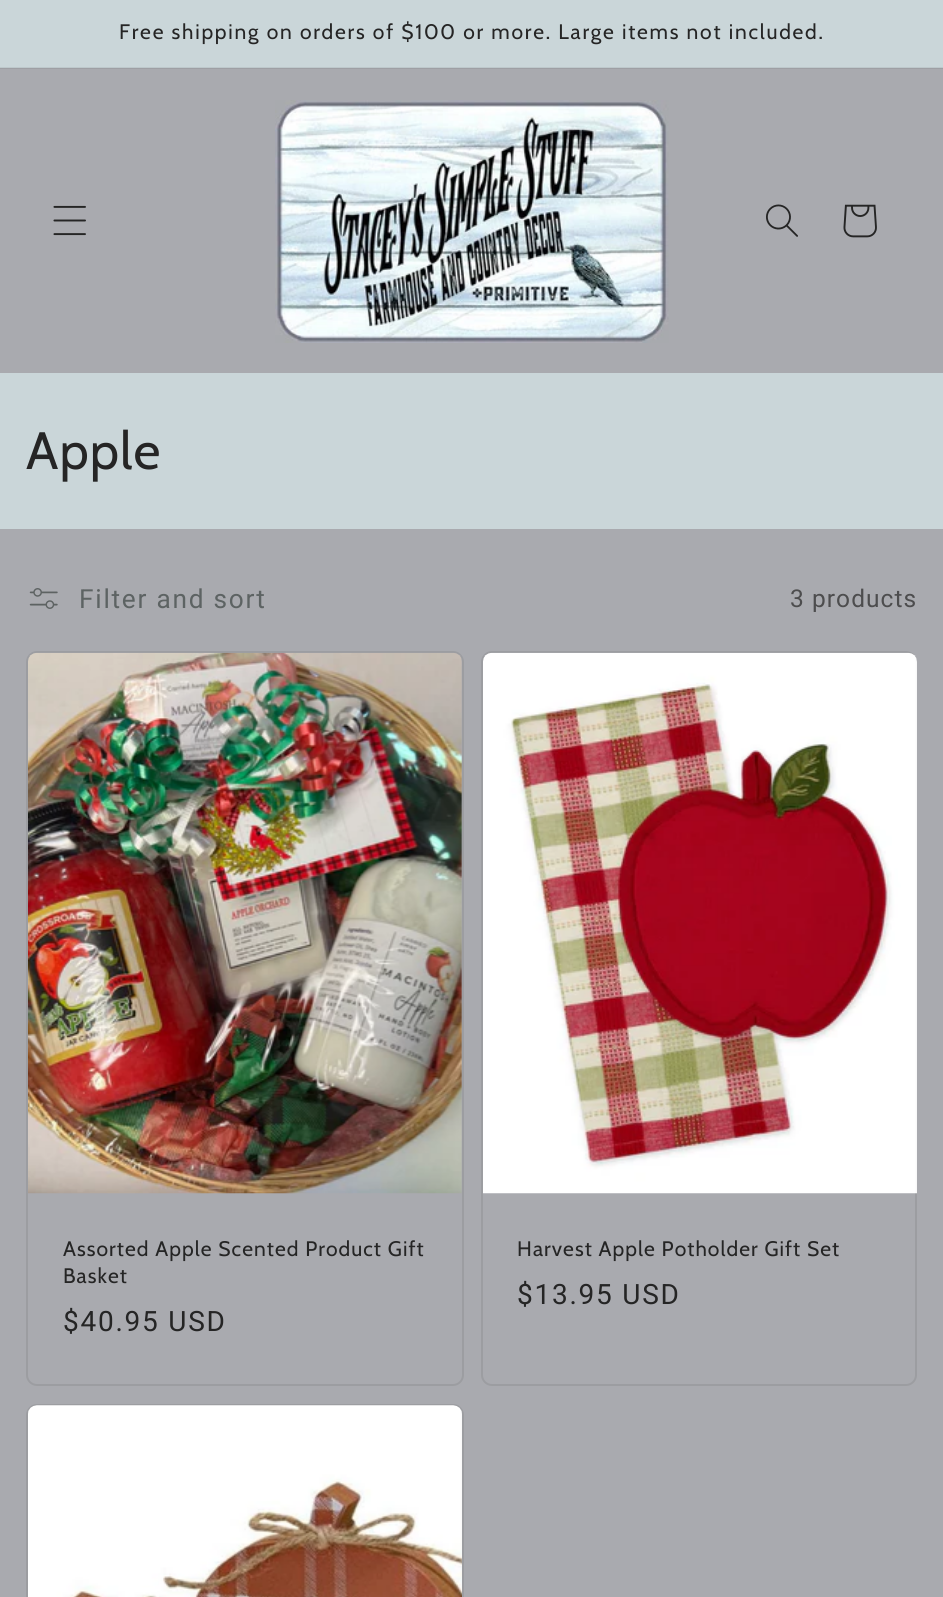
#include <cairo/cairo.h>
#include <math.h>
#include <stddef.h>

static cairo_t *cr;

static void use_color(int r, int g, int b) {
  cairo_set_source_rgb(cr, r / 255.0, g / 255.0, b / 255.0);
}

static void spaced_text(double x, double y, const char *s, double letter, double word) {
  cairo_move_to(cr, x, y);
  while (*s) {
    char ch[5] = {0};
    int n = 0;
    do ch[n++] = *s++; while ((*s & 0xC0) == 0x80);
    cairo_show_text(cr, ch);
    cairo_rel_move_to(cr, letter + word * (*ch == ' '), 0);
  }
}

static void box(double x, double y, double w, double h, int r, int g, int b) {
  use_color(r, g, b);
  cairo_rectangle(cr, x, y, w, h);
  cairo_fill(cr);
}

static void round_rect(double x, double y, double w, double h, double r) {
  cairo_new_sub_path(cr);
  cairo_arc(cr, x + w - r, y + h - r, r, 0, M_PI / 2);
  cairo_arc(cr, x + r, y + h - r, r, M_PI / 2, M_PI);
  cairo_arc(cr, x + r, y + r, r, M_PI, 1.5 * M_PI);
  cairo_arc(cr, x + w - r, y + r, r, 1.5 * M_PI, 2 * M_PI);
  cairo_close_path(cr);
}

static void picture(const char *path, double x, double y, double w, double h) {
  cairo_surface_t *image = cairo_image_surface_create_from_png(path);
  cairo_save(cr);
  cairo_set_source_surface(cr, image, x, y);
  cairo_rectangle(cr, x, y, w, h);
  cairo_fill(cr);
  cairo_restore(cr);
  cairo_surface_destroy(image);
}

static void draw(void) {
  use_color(169, 170, 175);
  cairo_paint(cr);
  box(0, 68, 943, 1, 158, 159, 164);
  box(0, 0, 943, 67, 202, 214, 217);
  box(0, 67, 943, 1, 189, 200, 203);
  picture("img_01.png", 53, 205, 33, 31);
  picture("img_02.png", 275, 100, 394, 243);
  picture("img_03.png", 766, 204, 32, 33);
  picture("img_04.png", 843, 204, 34, 34);
  box(0, 373, 943, 156, 202, 214, 217);
  picture("img_05.png", 29, 588, 29, 21);
  round_rect(27, 652, 436, 733, 10);
  use_color(156, 157, 161);
  cairo_stroke(cr);
  picture("img_06.png", 28, 652, 434, 542);
  round_rect(482, 652, 434, 733, 10);
  cairo_stroke(cr);
  picture("img_07.png", 483, 652, 434, 542);
  round_rect(27, 1405, 436, 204, 10);
  cairo_stroke(cr);
  picture("img_08.png", 28, 1405, 434, 192);
  cairo_select_font_face(cr, "Cabin", CAIRO_FONT_SLANT_NORMAL, CAIRO_FONT_WEIGHT_NORMAL);
  cairo_set_font_size(cr, 21);
  use_color(37, 37, 37);
  spaced_text(119, 39, "Free shipping on orders of $100 or more. Large items not included.", 1.75, 0);
  cairo_set_font_size(cr, 52.5);
  spaced_text(26, 469, "Apple", 1.05, 0);
  cairo_select_font_face(cr, "Roboto", CAIRO_FONT_SLANT_NORMAL, CAIRO_FONT_WEIGHT_NORMAL);
  cairo_set_font_size(cr, 26.25);
  use_color(93, 99, 99);
  spaced_text(79, 608, "Filter and sort", 1.75, 0);
  cairo_set_font_size(cr, 24.5);
  use_color(77, 77, 78);
  spaced_text(790, 607, "3 products", 1.05, 0);
  cairo_select_font_face(cr, "Cabin", CAIRO_FONT_SLANT_NORMAL, CAIRO_FONT_WEIGHT_NORMAL);
  cairo_set_font_size(cr, 21);
  use_color(37, 37, 37);
  spaced_text(63, 1256, "Assorted Apple Scented Product Gift", 1.05, 0);
  spaced_text(63, 1283, "Basket", 1.05, 0);
  cairo_select_font_face(cr, "Roboto", CAIRO_FONT_SLANT_NORMAL, CAIRO_FONT_WEIGHT_NORMAL);
  cairo_set_font_size(cr, 28);
  spaced_text(63, 1331, "$40.95 USD", 1.75, 0);
  cairo_select_font_face(cr, "Cabin", CAIRO_FONT_SLANT_NORMAL, CAIRO_FONT_WEIGHT_NORMAL);
  cairo_set_font_size(cr, 21);
  spaced_text(517, 1256, "Harvest Apple Potholder Gift Set", 1.05, 0);
  cairo_select_font_face(cr, "Roboto", CAIRO_FONT_SLANT_NORMAL, CAIRO_FONT_WEIGHT_NORMAL);
  cairo_set_font_size(cr, 28);
  spaced_text(517, 1304, "$13.95 USD", 1.75, 0);
}

int main(void) {
  cairo_surface_t *surface = cairo_image_surface_create(CAIRO_FORMAT_RGB24, 943, 1597);
  cr = cairo_create(surface);
  cairo_font_options_t *options = cairo_font_options_create();
  cairo_font_options_set_hint_metrics(options, CAIRO_HINT_METRICS_OFF);
  cairo_font_options_set_hint_style(options, CAIRO_HINT_STYLE_NONE);
  cairo_set_font_options(cr, options);
  cairo_set_miter_limit(cr, 4);
  draw();
  cairo_surface_write_to_png(surface, "out.png");
  cairo_font_options_destroy(options);
  cairo_destroy(cr);
  cairo_surface_destroy(surface);
  return 0;
}
